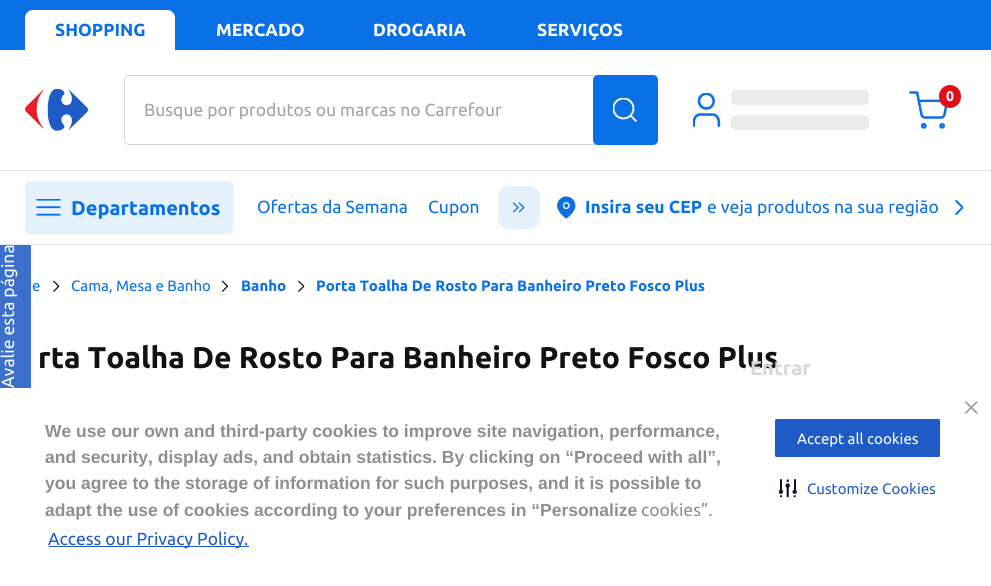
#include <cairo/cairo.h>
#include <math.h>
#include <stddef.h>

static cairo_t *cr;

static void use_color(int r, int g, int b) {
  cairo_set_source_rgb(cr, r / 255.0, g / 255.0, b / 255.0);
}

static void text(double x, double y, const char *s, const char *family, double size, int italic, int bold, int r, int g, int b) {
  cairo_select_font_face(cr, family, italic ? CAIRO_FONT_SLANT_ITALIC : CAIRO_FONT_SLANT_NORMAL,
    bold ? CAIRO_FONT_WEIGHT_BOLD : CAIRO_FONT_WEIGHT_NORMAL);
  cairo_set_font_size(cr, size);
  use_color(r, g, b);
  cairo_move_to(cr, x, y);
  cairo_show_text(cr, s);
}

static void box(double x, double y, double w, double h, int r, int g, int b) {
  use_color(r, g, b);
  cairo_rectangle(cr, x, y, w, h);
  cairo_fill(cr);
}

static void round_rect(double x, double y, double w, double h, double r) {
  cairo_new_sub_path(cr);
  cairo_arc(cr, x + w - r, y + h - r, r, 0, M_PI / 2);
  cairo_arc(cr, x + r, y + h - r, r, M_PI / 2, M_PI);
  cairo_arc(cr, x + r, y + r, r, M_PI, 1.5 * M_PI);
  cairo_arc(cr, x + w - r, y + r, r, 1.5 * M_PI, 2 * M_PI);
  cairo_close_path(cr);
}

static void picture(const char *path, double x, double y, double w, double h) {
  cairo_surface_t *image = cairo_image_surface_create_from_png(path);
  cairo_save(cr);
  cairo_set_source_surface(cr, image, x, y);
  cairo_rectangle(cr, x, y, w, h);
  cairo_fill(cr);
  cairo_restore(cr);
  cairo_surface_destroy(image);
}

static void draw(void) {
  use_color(255, 255, 255);
  cairo_paint(cr);
  cairo_set_source_rgba(cr, 0.118, 0.357, 0.776, 0.87);
  cairo_new_path(cr);
  cairo_move_to(cr, -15, 411);
  cairo_line_to(cr, -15, 222);
  cairo_line_to(cr, 24, 222);
  cairo_curve_to(cr, 28, 222, 31, 225, 31, 229);
  cairo_line_to(cr, 31, 403);
  cairo_curve_to(cr, 31, 407, 28, 411, 24, 411);
  cairo_close_path(cr);
  cairo_fill(cr);
  box(0, 0, 991, 50, 9, 112, 230);
  use_color(255, 255, 255);
  cairo_new_path(cr);
  cairo_move_to(cr, 33, 10);
  cairo_line_to(cr, 167, 10);
  cairo_curve_to(cr, 171.5, 10, 175, 13.5, 175, 18);
  cairo_line_to(cr, 175, 50);
  cairo_line_to(cr, 25, 50);
  cairo_line_to(cr, 25, 18);
  cairo_curve_to(cr, 25, 13.5, 28.5, 10, 33, 10);
  cairo_close_path(cr);
  cairo_fill(cr);
  box(0, 170, 991, 1, 229, 231, 235);
  picture("img_01.png", 25, 89, 63, 42);
  round_rect(124.5, 75.5, 533, 69, 4.5);
  use_color(209, 213, 219);
  cairo_set_line_width(cr, 1);
  cairo_stroke(cr);
  use_color(9, 112, 230);
  round_rect(593, 75, 65, 70, 5);
  cairo_fill(cr);
  picture("img_02.png", 613, 98, 24, 24);
  picture("img_03.png", 909, 91, 39, 38);
  use_color(223, 17, 22);
  round_rect(939, 85, 22, 23, 11);
  cairo_fill(cr);
  picture("img_04.png", 693, 93, 28, 34);
  use_color(235, 235, 235);
  round_rect(731, 90, 138, 15, 5);
  cairo_fill(cr);
  round_rect(731, 115, 138, 15, 5);
  cairo_fill(cr);
  box(0, 222, 31, 22, 255, 255, 255);
  box(0, 244, 991, 1, 229, 231, 235);
  use_color(230, 241, 254);
  round_rect(25, 181, 208, 53, 5);
  cairo_fill(cr);
  picture("img_05.png", 36, 199, 25, 17);
  round_rect(498, 186, 42, 43, 10);
  cairo_fill(cr);
  picture("img_06.png", 512, 202, 13, 11);
  picture("img_07.png", 557, 196, 19, 23);
  picture("img_08.png", 955, 200, 9, 15);
  picture("img_09.png", 53, 280, 7, 12);
  picture("img_10.png", 221, 280, 8, 12);
  picture("img_09.png", 298, 280, 7, 12);
  box(0, 388, 31, 23, 255, 255, 255);
  box(49, 546, 200, 1, 30, 91, 198);
  picture("img_11.png", 965, 401, 13, 13);
  round_rect(774.5, 418.5, 166, 39, 2);
  cairo_fill_preserve(cr);
  use_color(255, 255, 255);
  cairo_stroke(cr);
  picture("img_12.png", 779, 479, 18, 19);
  cairo_save(cr);
  cairo_translate(cr, 14, 388);
  cairo_rotate(cr, -90 * M_PI / 180);
  text(0, 0, "Avalie esta página", "Ubuntu", 17.5, 0, 0, 255, 255, 255);
  cairo_restore(cr);
  text(55, 36, "SHOPPING", "Ubuntu", 17.5, 0, 1, 9, 112, 230);
  text(216, 36, "MERCADO", "Ubuntu", 17.5, 0, 1, 255, 255, 255);
  text(373, 36, "DROGARIA", "Ubuntu", 17.5, 0, 1, 255, 255, 255);
  text(537, 36, "SERVIÇOS", "Ubuntu", 17.5, 0, 1, 255, 255, 255);
  text(144, 116, "Busque por produtos ou marcas no Carrefour", "Ubuntu", 17.5, 0, 0, 161, 161, 170);
  text(946, 101, "0", "Ubuntu", 14, 0, 1, 255, 255, 255);
  text(71, 215, "Departamentos", "Ubuntu", 20, 0, 1, 9, 112, 230);
  text(257, 213, "Ofertas da Semana", "Ubuntu", 17.5, 0, 0, 9, 112, 230);
  text(428, 213, "Cupon", "Ubuntu", 17.5, 0, 0, 9, 112, 230);
  text(585, 213, "Insira seu CEP", "Ubuntu", 17.5, 0, 1, 9, 112, 230);
  text(707, 213, "e veja produtos na sua região", "Ubuntu", 17.5, 0, 0, 9, 112, 230);
  text(32, 291, "e", "Ubuntu", 15, 0, 0, 9, 112, 230);
  text(71, 291, "Cama, Mesa e Banho", "Ubuntu", 15, 0, 0, 9, 112, 230);
  text(241, 291, "Banho", "Ubuntu", 15, 0, 1, 9, 112, 230);
  text(316, 291, "Porta Toalha De Rosto Para Banheiro Preto Fosco Plus", "Ubuntu", 15, 0, 1, 9, 112, 230);
  text(38, 368, "rta Toalha De Rosto Para Banheiro Preto Fosco Plus", "Ubuntu", 30, 0, 1, 18, 18, 18);
  text(750, 375, "Entrar", "Ubuntu", 20, 0, 1, 215, 215, 215);
  text(45, 437, "We use our own and third-party cookies to improve site navigation, performance,", "Liberation Sans", 17.5, 0, 1, 142, 142, 142);
  text(45, 463, "and security, display ads, and obtain statistics. By clicking on “Proceed with all”,", "Liberation Sans", 17.5, 0, 1, 142, 142, 142);
  text(45, 489, "you agree to the storage of information for such purposes, and it is possible to", "Liberation Sans", 17.5, 0, 1, 142, 142, 142);
  text(45, 516, "adapt the use of cookies according to your preferences in “Personalize", "Liberation Sans", 17.5, 0, 1, 142, 142, 142);
  text(641, 516, "cookies”.", "Ubuntu", 17.5, 0, 0, 142, 142, 142);
  text(48, 545, "Access our Privacy Policy.", "Ubuntu", 17.5, 0, 0, 30, 91, 198);
  text(797, 444, "Accept all cookies", "Ubuntu", 15, 0, 0, 255, 255, 255);
  text(807, 494, "Customize Cookies", "Ubuntu", 15, 0, 0, 30, 91, 198);
}

int main(void) {
  cairo_surface_t *surface = cairo_image_surface_create(CAIRO_FORMAT_RGB24, 991, 586);
  cr = cairo_create(surface);
  cairo_font_options_t *options = cairo_font_options_create();
  cairo_font_options_set_hint_metrics(options, CAIRO_HINT_METRICS_OFF);
  cairo_font_options_set_hint_style(options, CAIRO_HINT_STYLE_NONE);
  cairo_set_font_options(cr, options);
  cairo_set_miter_limit(cr, 4);
  draw();
  cairo_surface_write_to_png(surface, "out.png");
  cairo_font_options_destroy(options);
  cairo_destroy(cr);
  cairo_surface_destroy(surface);
  return 0;
}
